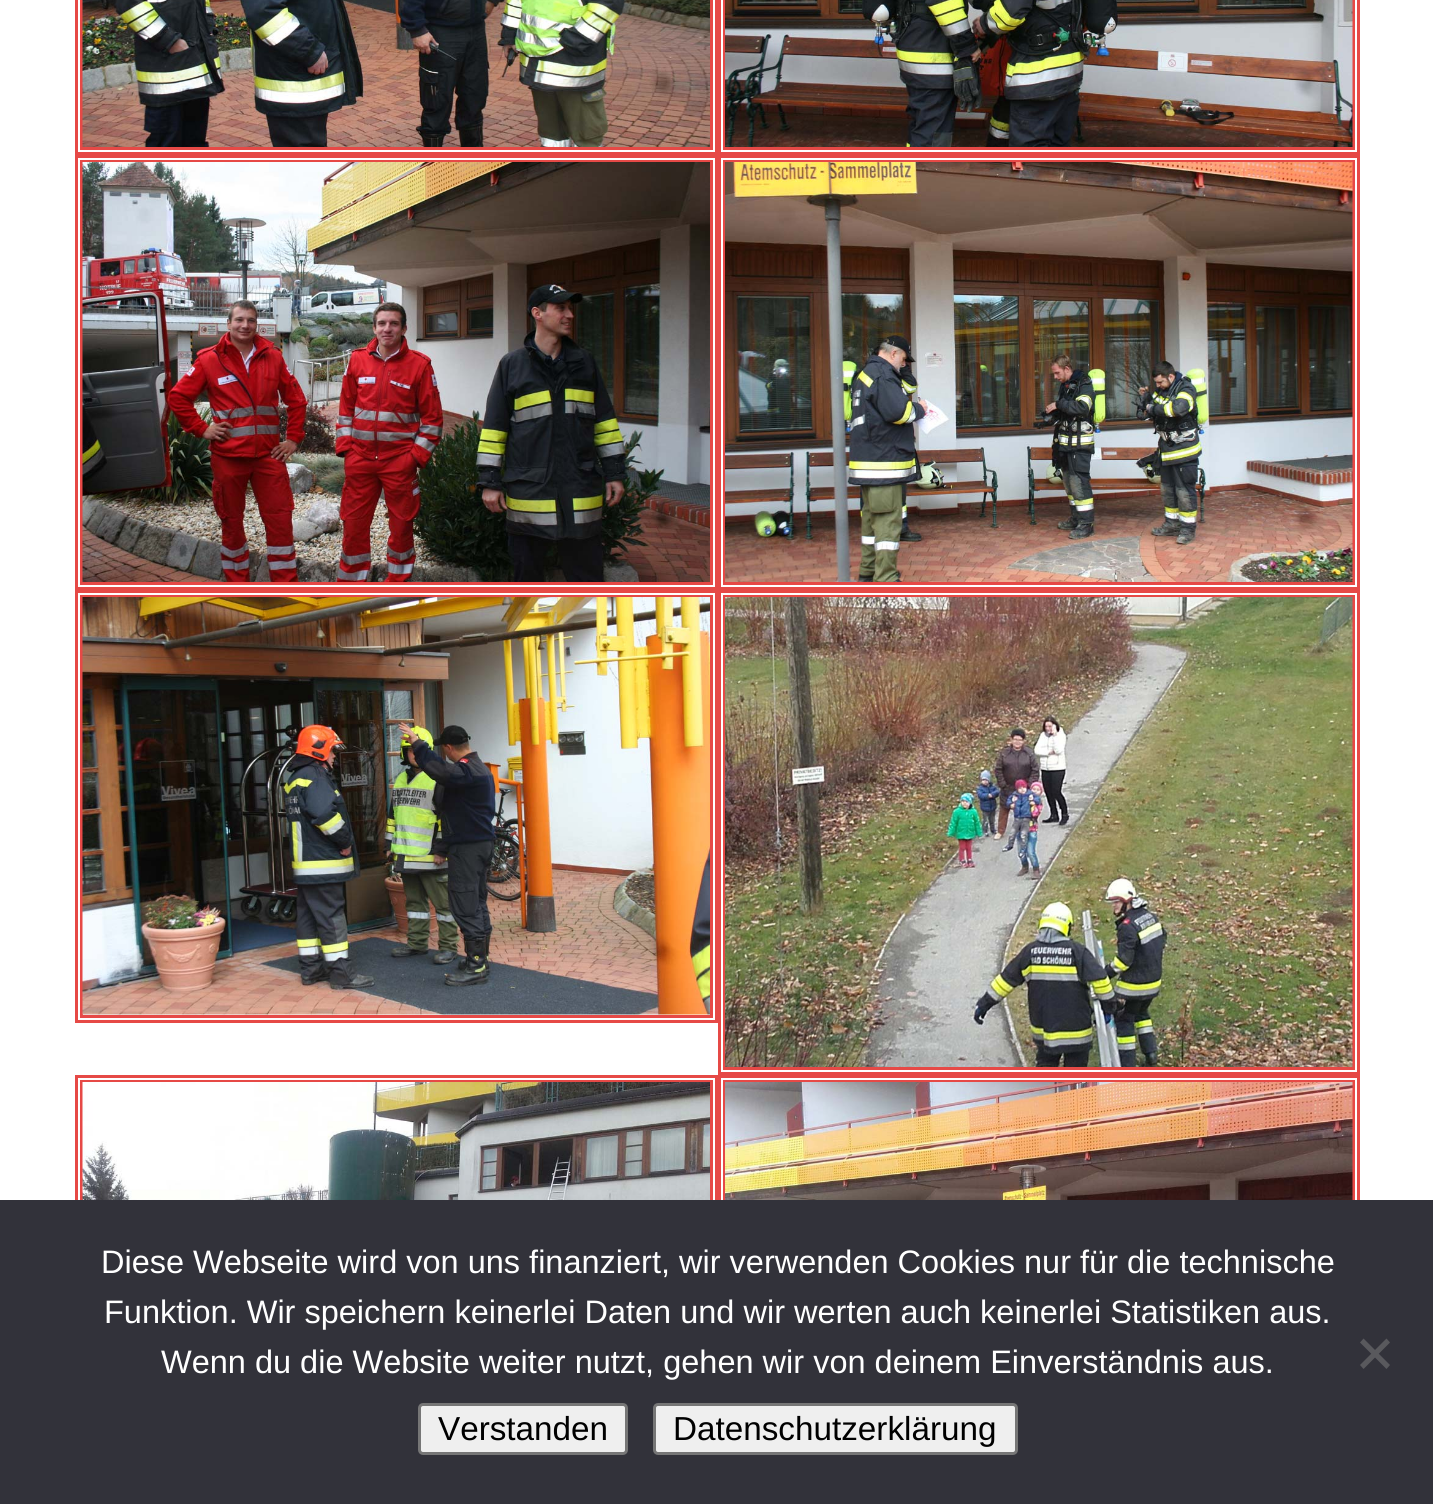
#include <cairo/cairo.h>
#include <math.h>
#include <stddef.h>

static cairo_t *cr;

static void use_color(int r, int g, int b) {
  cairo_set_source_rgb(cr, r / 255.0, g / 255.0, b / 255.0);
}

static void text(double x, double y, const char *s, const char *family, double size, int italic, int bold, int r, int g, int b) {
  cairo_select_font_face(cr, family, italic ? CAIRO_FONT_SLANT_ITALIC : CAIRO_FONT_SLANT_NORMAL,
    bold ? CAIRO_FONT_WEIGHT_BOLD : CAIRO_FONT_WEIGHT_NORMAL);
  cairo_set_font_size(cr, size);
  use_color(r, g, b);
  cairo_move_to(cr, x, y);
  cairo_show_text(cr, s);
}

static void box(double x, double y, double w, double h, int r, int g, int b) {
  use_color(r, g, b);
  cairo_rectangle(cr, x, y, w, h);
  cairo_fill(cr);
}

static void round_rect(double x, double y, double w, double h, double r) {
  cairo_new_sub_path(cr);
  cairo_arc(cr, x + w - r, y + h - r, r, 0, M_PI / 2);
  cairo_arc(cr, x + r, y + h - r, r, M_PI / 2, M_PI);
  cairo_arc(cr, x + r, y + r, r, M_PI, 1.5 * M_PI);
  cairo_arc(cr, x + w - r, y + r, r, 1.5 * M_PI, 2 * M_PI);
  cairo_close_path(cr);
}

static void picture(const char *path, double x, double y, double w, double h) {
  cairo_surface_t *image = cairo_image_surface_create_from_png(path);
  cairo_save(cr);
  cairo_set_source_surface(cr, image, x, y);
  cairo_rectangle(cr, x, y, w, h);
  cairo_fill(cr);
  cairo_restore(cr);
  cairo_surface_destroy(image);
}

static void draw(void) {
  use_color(255, 255, 255);
  cairo_paint(cr);
  cairo_rectangle(cr, 76.5, -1.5, 640, 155);
  use_color(230, 73, 70);
  cairo_set_line_width(cr, 3);
  cairo_stroke(cr);
  cairo_rectangle(cr, 81.5, -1.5, 630, 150);
  cairo_stroke(cr);
  picture("img_01.png", 82, 0, 628, 147);
  cairo_rectangle(cr, 719.5, -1.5, 639, 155);
  cairo_stroke(cr);
  cairo_rectangle(cr, 724.5, -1.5, 629, 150);
  cairo_stroke(cr);
  picture("img_02.png", 725, 0, 628, 147);
  cairo_rectangle(cr, 76.5, 156.5, 640, 432);
  cairo_stroke(cr);
  cairo_rectangle(cr, 81.5, 161.5, 630, 422);
  cairo_stroke(cr);
  picture("img_03.png", 82, 162, 628, 420);
  cairo_rectangle(cr, 719.5, 156.5, 639, 432);
  cairo_stroke(cr);
  cairo_rectangle(cr, 724.5, 161.5, 629, 422);
  cairo_stroke(cr);
  picture("img_04.png", 725, 162, 628, 420);
  cairo_rectangle(cr, 76.5, 591.5, 640, 430);
  cairo_stroke(cr);
  cairo_rectangle(cr, 81.5, 596.5, 630, 420);
  cairo_stroke(cr);
  picture("img_05.png", 82, 597, 628, 418);
  cairo_rectangle(cr, 719.5, 591.5, 639, 482);
  cairo_stroke(cr);
  cairo_rectangle(cr, 724.5, 596.5, 629, 472);
  cairo_stroke(cr);
  picture("img_06.png", 725, 597, 628, 470);
  cairo_rectangle(cr, 76.5, 1076.5, 640, 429);
  cairo_stroke(cr);
  cairo_rectangle(cr, 81.5, 1081.5, 630, 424);
  cairo_stroke(cr);
  picture("img_07.png", 82, 1082, 628, 118);
  cairo_rectangle(cr, 719.5, 1076.5, 639, 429);
  cairo_stroke(cr);
  cairo_rectangle(cr, 724.5, 1081.5, 629, 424);
  cairo_stroke(cr);
  picture("img_08.png", 725, 1082, 628, 118);
  box(0, 1200, 1433, 304, 50, 50, 58);
  use_color(89, 89, 93);
  cairo_new_path(cr);
  cairo_move_to(cr, 1386.5, 1338.5);
  cairo_line_to(cr, 1390, 1342.5);
  cairo_line_to(cr, 1363.5, 1369);
  cairo_line_to(cr, 1360, 1365);
  cairo_close_path(cr);
  cairo_fill(cr);
  cairo_new_path(cr);
  cairo_move_to(cr, 1360, 1342.5);
  cairo_line_to(cr, 1363.5, 1338.5);
  cairo_line_to(cr, 1390, 1365);
  cairo_line_to(cr, 1386.5, 1369);
  cairo_close_path(cr);
  cairo_fill(cr);
  use_color(239, 239, 239);
  round_rect(419.5, 1404.5, 207, 49, 3.5);
  cairo_fill_preserve(cr);
  use_color(118, 118, 118);
  cairo_stroke(cr);
  use_color(239, 239, 239);
  round_rect(654.5, 1404.5, 362, 49, 3.5);
  cairo_fill_preserve(cr);
  use_color(118, 118, 118);
  cairo_stroke(cr);
  text(101, 1273, "Diese Webseite wird von uns finanziert, wir verwenden Cookies nur für die technische", "Liberation Sans", 32.5, 0, 0, 255, 255, 255);
  text(104, 1323, "Funktion. Wir speichern keinerlei Daten und wir werten auch keinerlei Statistiken aus.", "Liberation Sans", 32.5, 0, 0, 255, 255, 255);
  text(161, 1373, "Wenn du die Website weiter nutzt, gehen wir von deinem Einverständnis aus.", "Liberation Sans", 32.5, 0, 0, 255, 255, 255);
  text(438, 1440, "Verstanden", "Liberation Sans", 33.25, 0, 0, 0, 0, 0);
  text(673, 1440, "Datenschutzerklärung", "Liberation Sans", 33.25, 0, 0, 0, 0, 0);
}

int main(void) {
  cairo_surface_t *surface = cairo_image_surface_create(CAIRO_FORMAT_RGB24, 1433, 1504);
  cr = cairo_create(surface);
  cairo_font_options_t *options = cairo_font_options_create();
  cairo_font_options_set_hint_metrics(options, CAIRO_HINT_METRICS_OFF);
  cairo_font_options_set_hint_style(options, CAIRO_HINT_STYLE_NONE);
  cairo_set_font_options(cr, options);
  cairo_set_miter_limit(cr, 4);
  draw();
  cairo_surface_write_to_png(surface, "out.png");
  cairo_font_options_destroy(options);
  cairo_destroy(cr);
  cairo_surface_destroy(surface);
  return 0;
}
